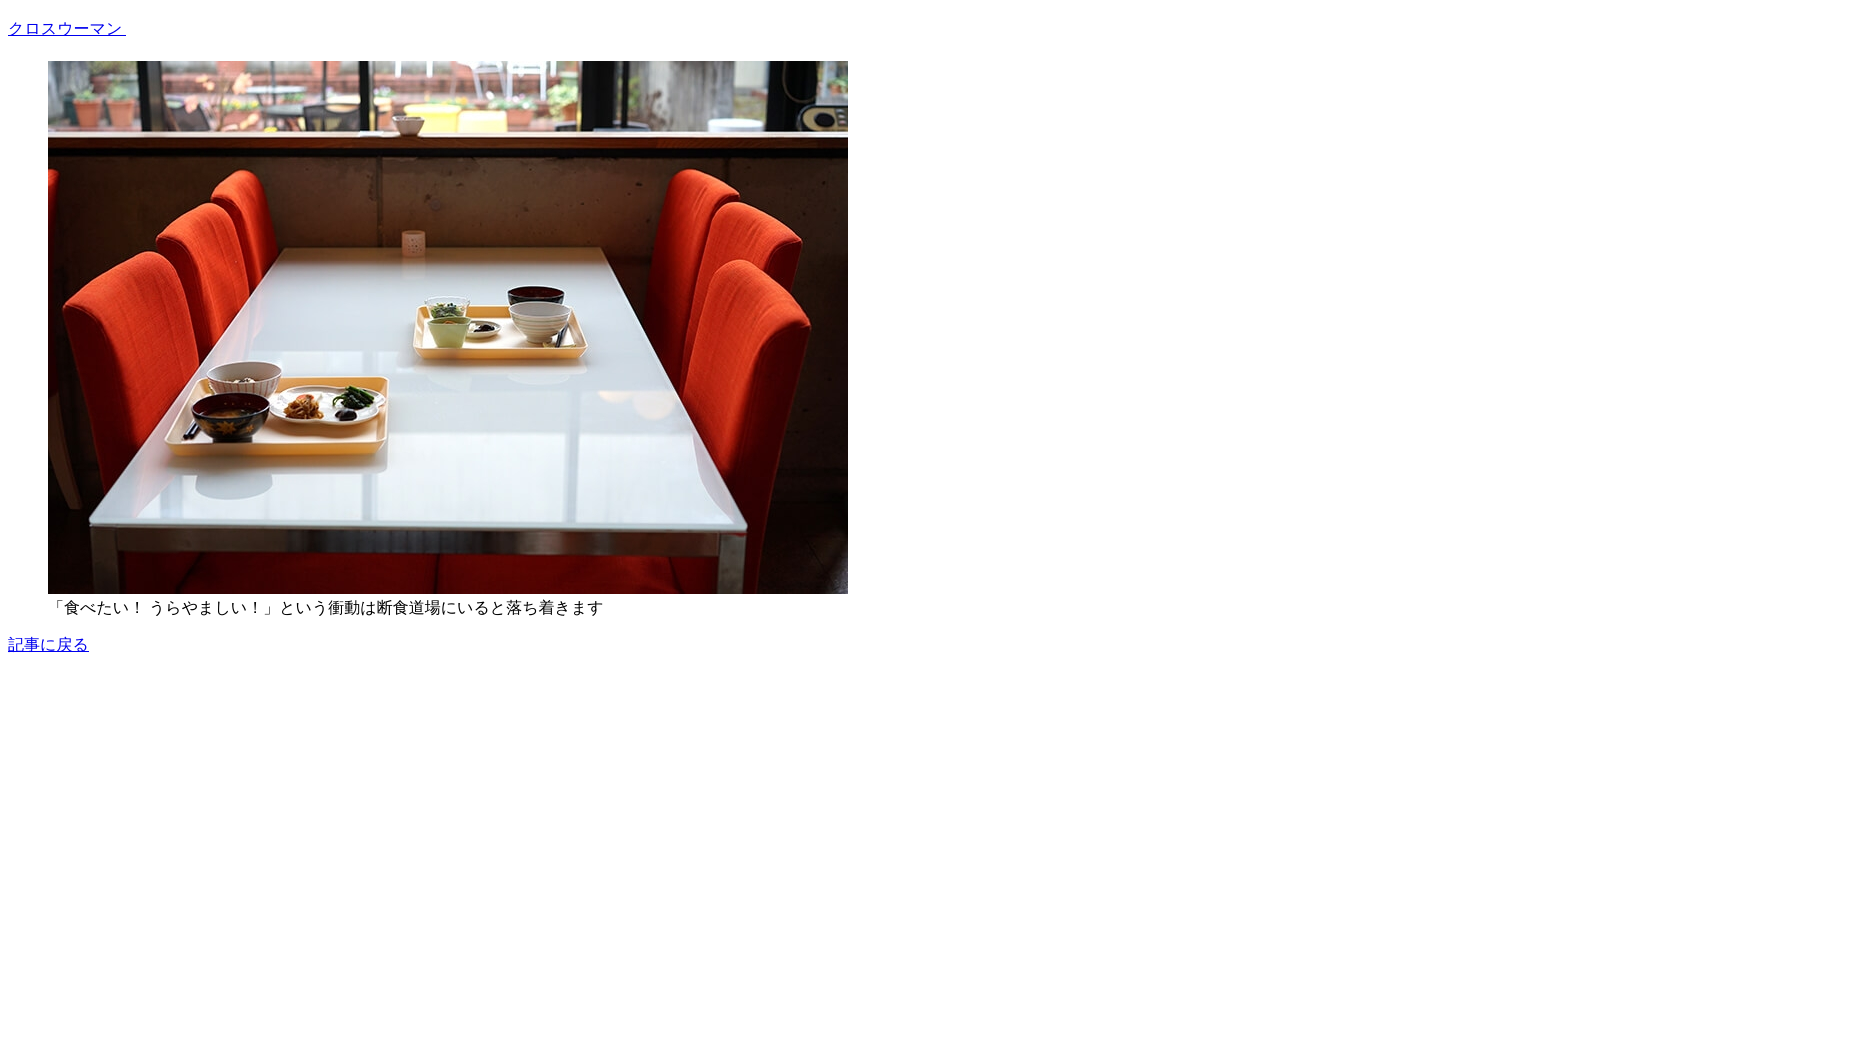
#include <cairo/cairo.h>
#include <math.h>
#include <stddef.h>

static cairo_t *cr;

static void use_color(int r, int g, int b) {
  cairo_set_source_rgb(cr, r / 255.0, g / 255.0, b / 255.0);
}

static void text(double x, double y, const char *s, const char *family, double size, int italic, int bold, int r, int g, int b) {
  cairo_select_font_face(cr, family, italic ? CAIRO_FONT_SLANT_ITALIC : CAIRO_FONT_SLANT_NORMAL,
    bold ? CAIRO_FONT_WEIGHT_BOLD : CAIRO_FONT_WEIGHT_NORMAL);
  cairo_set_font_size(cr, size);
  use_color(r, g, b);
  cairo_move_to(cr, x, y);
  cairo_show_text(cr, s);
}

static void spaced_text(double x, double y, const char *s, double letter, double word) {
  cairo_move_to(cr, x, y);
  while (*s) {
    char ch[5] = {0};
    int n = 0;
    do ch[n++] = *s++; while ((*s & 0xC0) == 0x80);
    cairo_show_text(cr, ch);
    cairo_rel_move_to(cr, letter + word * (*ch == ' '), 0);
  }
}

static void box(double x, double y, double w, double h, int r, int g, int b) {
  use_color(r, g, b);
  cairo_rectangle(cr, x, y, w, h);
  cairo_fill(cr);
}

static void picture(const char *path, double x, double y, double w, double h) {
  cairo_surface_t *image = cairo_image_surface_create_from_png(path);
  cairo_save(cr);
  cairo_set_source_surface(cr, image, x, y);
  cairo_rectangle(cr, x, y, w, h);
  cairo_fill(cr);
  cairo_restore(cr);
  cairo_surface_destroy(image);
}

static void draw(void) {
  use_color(255, 255, 255);
  cairo_paint(cr);
  box(8, 35, 118, 1, 0, 0, 238);
  picture("img_01.png", 48, 61, 800, 533);
  box(8, 651, 81, 1, 0, 0, 238);
  text(8, 34, "クロスウーマン", "WenQuanYi Zen Hei Medium", 16, 0, 0, 0, 0, 238);
  use_color(0, 0, 0);
  spaced_text(48, 613, "「食べたい！ うらやましい！」という衝動は断食道場にいると落ち着きます", 0, -1);
  text(8, 650, "記事に戻る", "WenQuanYi Zen Hei Medium", 16, 0, 0, 0, 0, 238);
}

int main(void) {
  cairo_surface_t *surface = cairo_image_surface_create(CAIRO_FORMAT_RGB24, 1850, 1056);
  cr = cairo_create(surface);
  cairo_font_options_t *options = cairo_font_options_create();
  cairo_font_options_set_hint_metrics(options, CAIRO_HINT_METRICS_OFF);
  cairo_font_options_set_hint_style(options, CAIRO_HINT_STYLE_NONE);
  cairo_set_font_options(cr, options);
  cairo_set_miter_limit(cr, 4);
  draw();
  cairo_surface_write_to_png(surface, "out.png");
  cairo_font_options_destroy(options);
  cairo_destroy(cr);
  cairo_surface_destroy(surface);
  return 0;
}
